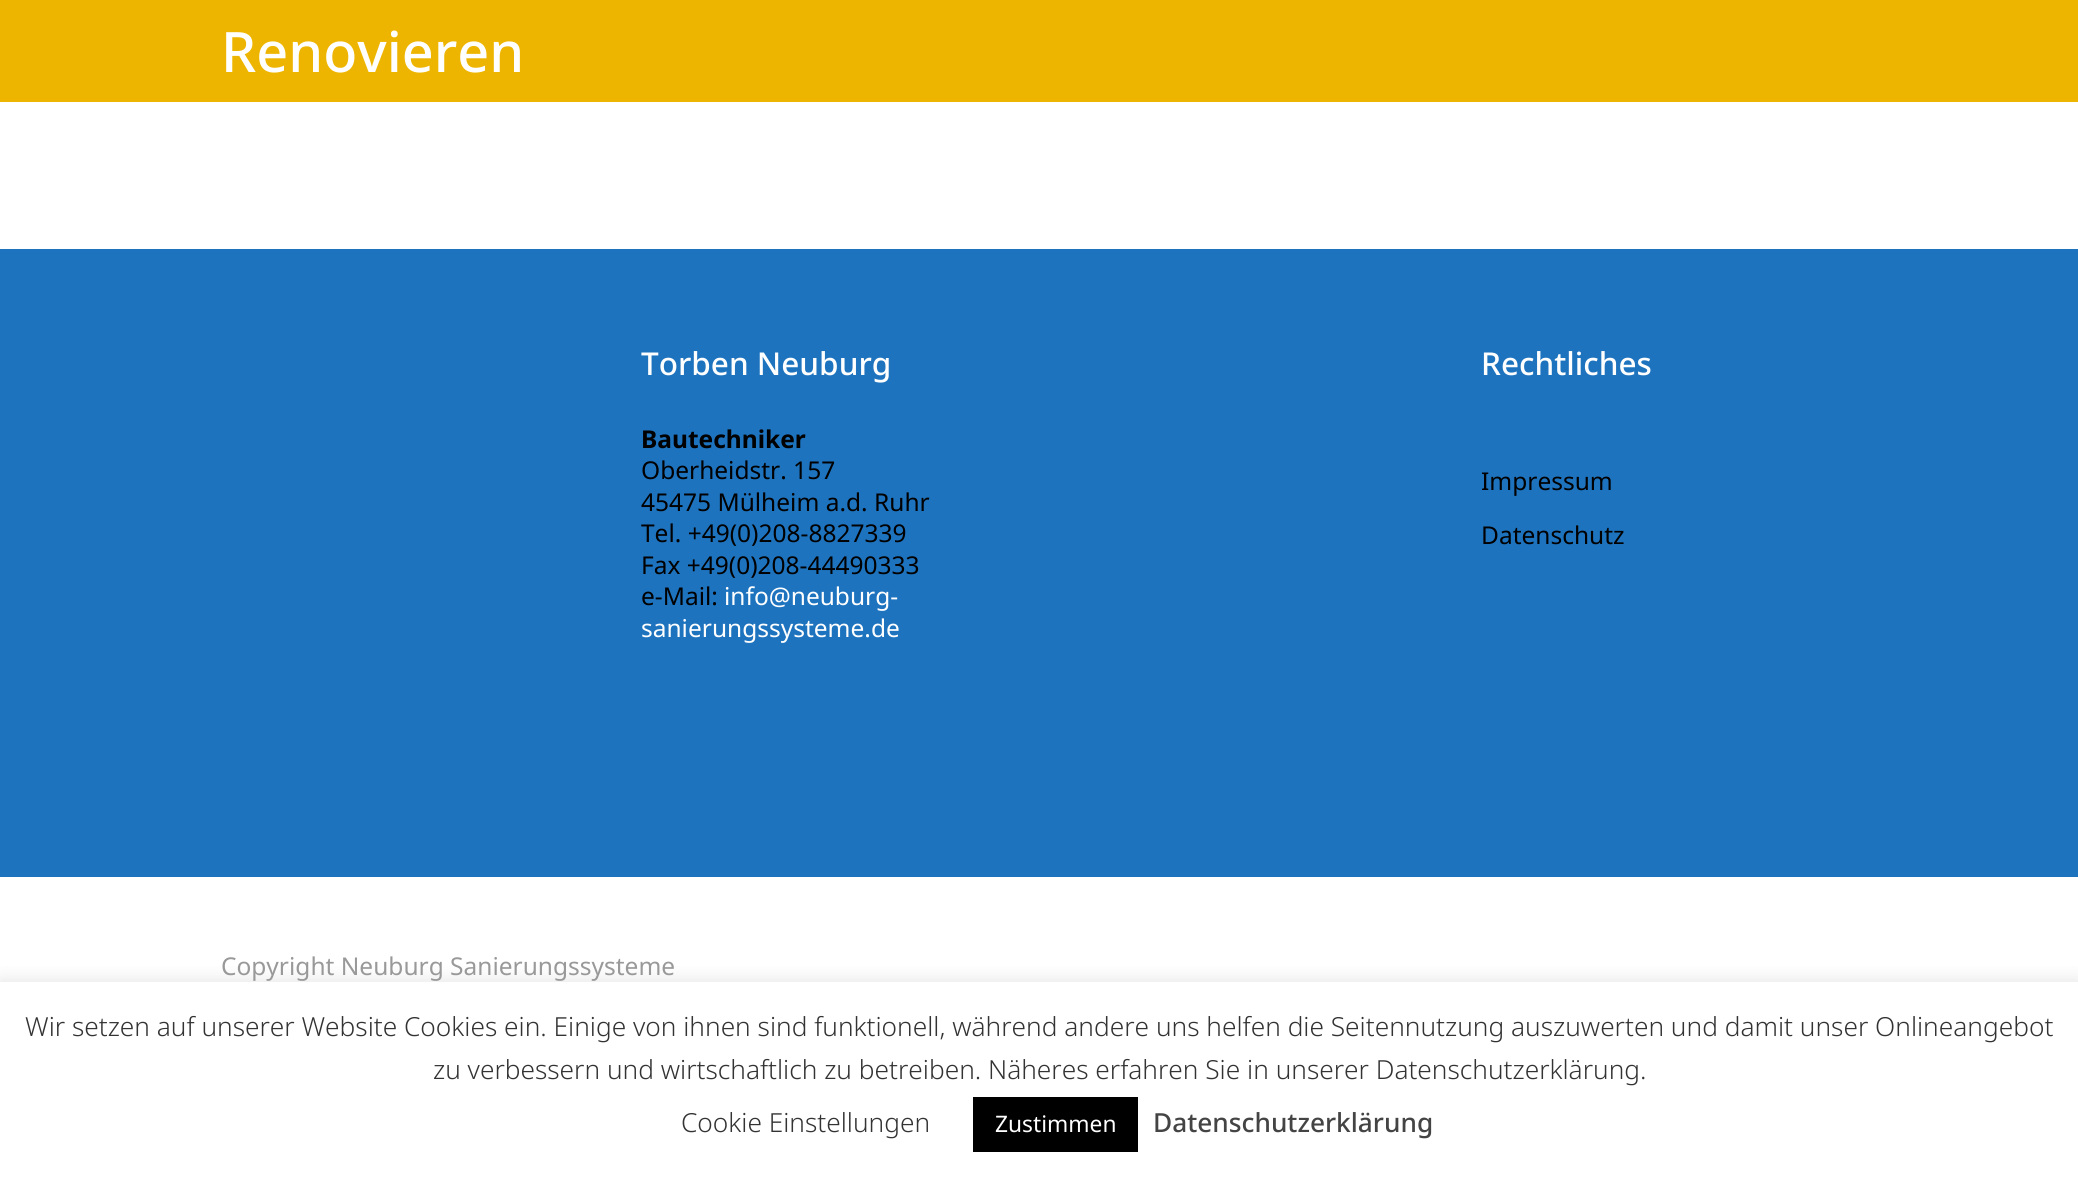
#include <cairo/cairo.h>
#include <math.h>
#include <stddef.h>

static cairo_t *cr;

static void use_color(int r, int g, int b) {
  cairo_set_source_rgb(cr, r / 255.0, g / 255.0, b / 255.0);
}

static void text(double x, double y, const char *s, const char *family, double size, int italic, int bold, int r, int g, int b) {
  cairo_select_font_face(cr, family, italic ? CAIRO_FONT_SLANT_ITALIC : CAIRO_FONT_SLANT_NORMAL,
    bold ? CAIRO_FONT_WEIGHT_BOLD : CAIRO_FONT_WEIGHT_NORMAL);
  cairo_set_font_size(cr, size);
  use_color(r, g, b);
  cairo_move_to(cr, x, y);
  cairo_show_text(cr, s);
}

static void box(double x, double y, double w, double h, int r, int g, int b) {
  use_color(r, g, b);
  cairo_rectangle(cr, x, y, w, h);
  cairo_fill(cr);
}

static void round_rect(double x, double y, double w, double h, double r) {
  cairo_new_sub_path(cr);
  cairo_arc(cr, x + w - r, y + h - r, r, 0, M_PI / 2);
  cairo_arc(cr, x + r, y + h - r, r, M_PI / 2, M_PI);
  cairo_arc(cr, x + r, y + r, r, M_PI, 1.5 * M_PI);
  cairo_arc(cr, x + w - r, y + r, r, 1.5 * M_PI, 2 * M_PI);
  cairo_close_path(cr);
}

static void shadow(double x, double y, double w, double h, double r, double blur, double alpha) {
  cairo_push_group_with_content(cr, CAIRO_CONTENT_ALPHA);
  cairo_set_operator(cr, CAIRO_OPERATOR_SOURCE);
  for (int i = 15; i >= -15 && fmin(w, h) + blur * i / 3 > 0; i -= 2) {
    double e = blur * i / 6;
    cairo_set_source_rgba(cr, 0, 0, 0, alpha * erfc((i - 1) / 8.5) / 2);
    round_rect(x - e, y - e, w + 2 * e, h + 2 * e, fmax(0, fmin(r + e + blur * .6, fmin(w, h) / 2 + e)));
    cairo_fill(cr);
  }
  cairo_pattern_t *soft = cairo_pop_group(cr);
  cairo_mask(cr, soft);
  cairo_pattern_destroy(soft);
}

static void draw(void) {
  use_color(255, 255, 255);
  cairo_paint(cr);
  box(0, 0, 2078, 102, 238, 181, 0);
  box(0, 249, 2078, 628, 30, 115, 190);
  cairo_save(cr);
  cairo_rectangle(cr, 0, 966, 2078, 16);
  cairo_clip(cr);
  use_color(172, 171, 171);
  shadow(0, 980, 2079, 200, 0, 9, 0.3);
  cairo_restore(cr);
  box(973, 1097, 165, 55, 0, 0, 0);
  text(221, 72, "Renovieren", "Noto Sans Medium", 55.75, 0, 0, 255, 255, 255);
  text(641, 375, "Torben Neuburg", "Noto Sans Medium", 31.5, 0, 0, 255, 255, 255);
  text(641, 448, "Bautechniker", "Noto Sans", 24.5, 0, 1, 0, 0, 0);
  text(641, 479, "Oberheidstr. 157", "Noto Sans", 24.5, 0, 0, 0, 0, 0);
  text(641, 511, "45475 Mülheim a.d. Ruhr", "Noto Sans", 24.5, 0, 0, 0, 0, 0);
  cairo_save(cr);
  cairo_rectangle(cr, 641, 345, 378, 331);
  cairo_clip(cr);
  text(641, 542, "Tel. +49(0)208-8827339", "Noto Sans", 24.5, 0, 0, 0, 0, 0);
  cairo_restore(cr);
  text(641, 574, "Fax +49(0)208-44490333", "Noto Sans", 24.5, 0, 0, 0, 0, 0);
  text(641, 605, "e-Mail:", "Noto Sans", 24.5, 0, 0, 0, 0, 0);
  text(724, 605, "info@neuburg-", "Noto Sans", 24.5, 0, 0, 255, 255, 255);
  text(641, 637, "sanierungssysteme.de", "Noto Sans", 24.5, 0, 0, 255, 255, 255);
  text(1481, 375, "Rechtliches", "Noto Sans Medium", 31.5, 0, 0, 255, 255, 255);
  text(1481, 490, "Impressum", "Noto Sans", 24.5, 0, 0, 0, 0, 0);
  text(1481, 544, "Datenschutz", "Noto Sans", 24.5, 0, 0, 0, 0, 0);
  text(221, 975, "Copyright Neuburg Sanierungssysteme", "Noto Sans", 24.5, 0, 0, 153, 153, 153);
  text(25, 1036, "Wir setzen auf unserer Website Cookies ein. Einige von ihnen sind funktionell, während andere uns helfen die Seitennutzung auszuwerten und damit unser Onlineangebot", "Noto Sans Light", 26.25, 0, 0, 51, 51, 51);
  text(433, 1079, "zu verbessern und wirtschaftlich zu betreiben. Näheres erfahren Sie in unserer Datenschutzerklärung.", "Noto Sans Light", 26.25, 0, 0, 51, 51, 51);
  text(681, 1132, "Cookie Einstellungen", "Noto Sans Light", 26.25, 0, 0, 51, 51, 51);
  text(995, 1132, "Zustimmen", "Noto Sans", 22.75, 0, 0, 255, 255, 255);
  text(1153, 1132, "Datenschutzerklärung", "Noto Sans Medium", 26.25, 0, 0, 68, 68, 68);
}

int main(void) {
  cairo_surface_t *surface = cairo_image_surface_create(CAIRO_FORMAT_RGB24, 2078, 1180);
  cr = cairo_create(surface);
  cairo_font_options_t *options = cairo_font_options_create();
  cairo_font_options_set_hint_metrics(options, CAIRO_HINT_METRICS_OFF);
  cairo_font_options_set_hint_style(options, CAIRO_HINT_STYLE_NONE);
  cairo_set_font_options(cr, options);
  cairo_set_miter_limit(cr, 4);
  draw();
  cairo_surface_write_to_png(surface, "out.png");
  cairo_font_options_destroy(options);
  cairo_destroy(cr);
  cairo_surface_destroy(surface);
  return 0;
}
